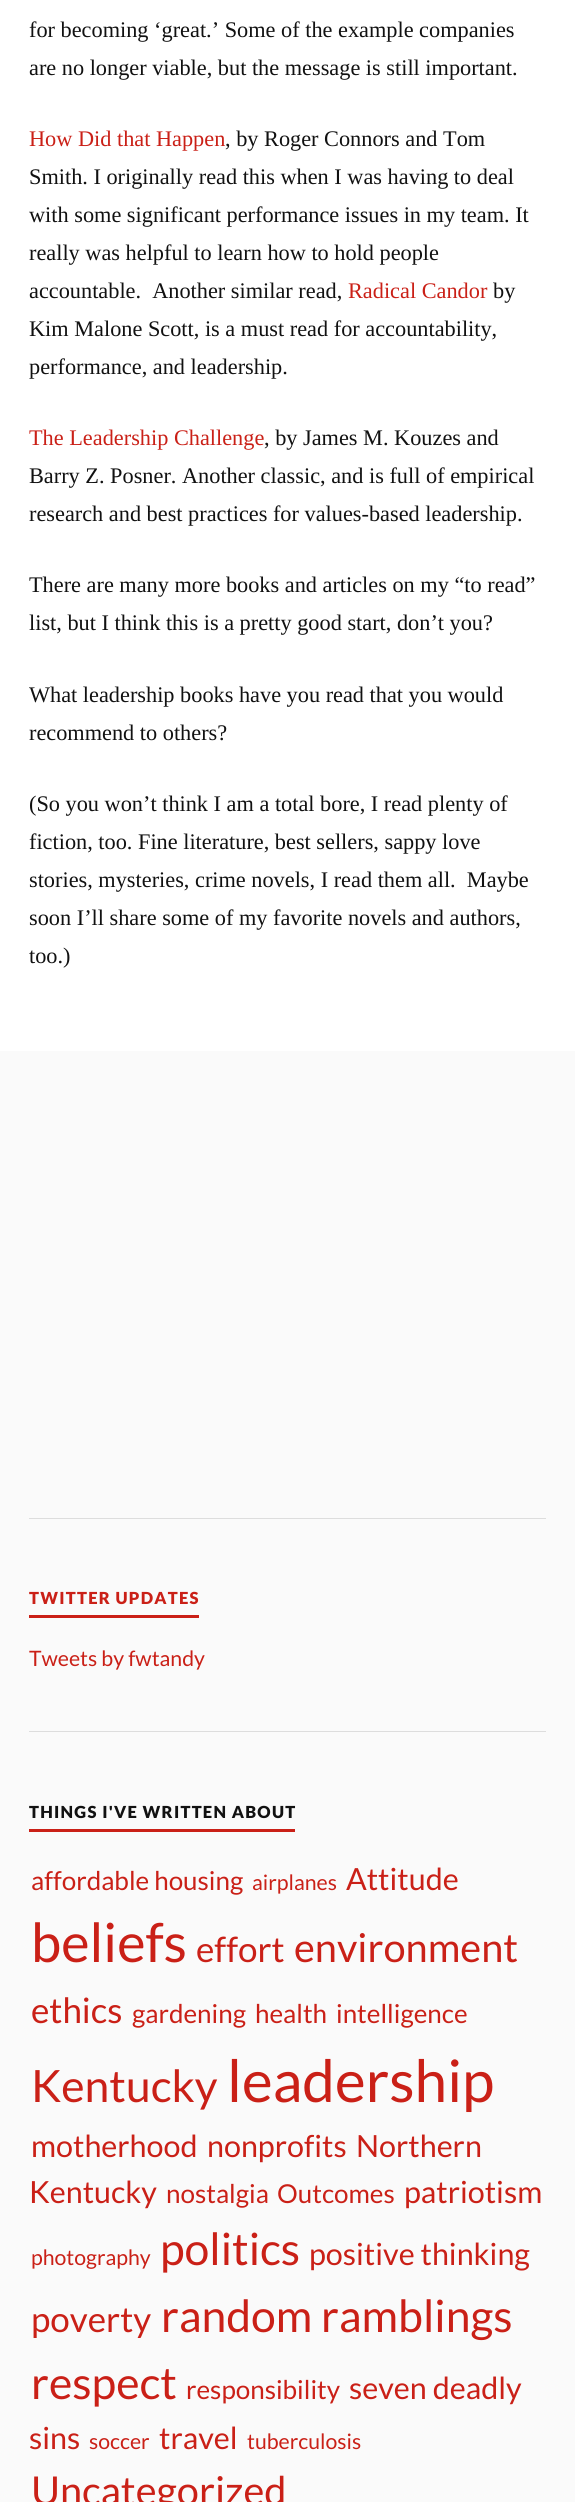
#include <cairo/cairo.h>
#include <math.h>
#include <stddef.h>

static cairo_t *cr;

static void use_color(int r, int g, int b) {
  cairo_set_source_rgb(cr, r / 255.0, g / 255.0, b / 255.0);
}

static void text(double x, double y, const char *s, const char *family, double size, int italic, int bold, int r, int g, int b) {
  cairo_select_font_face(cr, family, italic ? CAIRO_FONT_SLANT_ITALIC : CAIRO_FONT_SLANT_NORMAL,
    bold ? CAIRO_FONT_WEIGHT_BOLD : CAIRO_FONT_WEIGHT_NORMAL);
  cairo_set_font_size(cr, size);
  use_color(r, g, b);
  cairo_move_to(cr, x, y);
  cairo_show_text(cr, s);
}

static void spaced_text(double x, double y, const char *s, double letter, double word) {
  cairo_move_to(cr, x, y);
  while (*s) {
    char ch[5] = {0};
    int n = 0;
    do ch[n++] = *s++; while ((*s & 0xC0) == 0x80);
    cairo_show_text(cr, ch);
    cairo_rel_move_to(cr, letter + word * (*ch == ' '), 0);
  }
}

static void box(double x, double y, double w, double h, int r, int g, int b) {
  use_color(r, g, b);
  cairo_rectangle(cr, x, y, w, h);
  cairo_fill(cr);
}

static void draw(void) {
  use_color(250, 250, 250);
  cairo_paint(cr);
  box(0, 0, 575, 1051, 255, 255, 255);
  box(29, 1518, 517, 1, 221, 221, 221);
  box(29, 1615, 170, 3, 202, 32, 23);
  box(29, 1731, 517, 1, 221, 221, 221);
  box(29, 1829, 266, 3, 202, 32, 23);
  text(29, 37, "for becoming ‘great.’ Some of the example companies", "Liberation Serif", 22.3, 0, 0, 17, 17, 17);
  text(29, 75, "are no longer viable, but the message is still important.", "Liberation Serif", 22.3, 0, 0, 17, 17, 17);
  text(29, 146, "How Did that Happen", "Liberation Serif", 22.3, 0, 0, 202, 32, 23);
  text(225, 146, ", by Roger Connors and Tom", "Liberation Serif", 22.3, 0, 0, 17, 17, 17);
  text(29, 184, "Smith. I originally read this when I was having to deal", "Liberation Serif", 22.3, 0, 0, 17, 17, 17);
  text(29, 222, "with some significant performance issues in my team. It", "Liberation Serif", 22.3, 0, 0, 17, 17, 17);
  text(29, 260, "really was helpful to learn how to hold people", "Liberation Serif", 22.3, 0, 0, 17, 17, 17);
  text(29, 298, "accountable.  Another similar read,", "Liberation Serif", 22.3, 0, 0, 17, 17, 17);
  text(348, 298, "Radical Candor", "Liberation Serif", 22.3, 0, 0, 202, 32, 23);
  text(493, 298, "by", "Liberation Serif", 22.3, 0, 0, 17, 17, 17);
  text(29, 336, "Kim Malone Scott, is a must read for accountability,", "Liberation Serif", 22.3, 0, 0, 17, 17, 17);
  text(29, 374, "performance, and leadership.", "Liberation Serif", 22.3, 0, 0, 17, 17, 17);
  text(29, 445, "The Leadership Challenge", "Liberation Serif", 22.3, 0, 0, 202, 32, 23);
  text(264, 445, ", by James M. Kouzes and", "Liberation Serif", 22.3, 0, 0, 17, 17, 17);
  text(29, 483, "Barry Z. Posner. Another classic, and is full of empirical", "Liberation Serif", 22.3, 0, 0, 17, 17, 17);
  text(29, 521, "research and best practices for values-based leadership.", "Liberation Serif", 22.3, 0, 0, 17, 17, 17);
  text(29, 592, "There are many more books and articles on my “to read”", "Liberation Serif", 22.3, 0, 0, 17, 17, 17);
  text(29, 630, "list, but I think this is a pretty good start, don’t you?", "Liberation Serif", 22.3, 0, 0, 17, 17, 17);
  text(29, 702, "What leadership books have you read that you would", "Liberation Serif", 22.3, 0, 0, 17, 17, 17);
  text(29, 740, "recommend to others?", "Liberation Serif", 22.3, 0, 0, 17, 17, 17);
  text(29, 811, "(So you won’t think I am a total bore, I read plenty of", "Liberation Serif", 22.3, 0, 0, 17, 17, 17);
  text(29, 849, "fiction, too. Fine literature, best sellers, sappy love", "Liberation Serif", 22.3, 0, 0, 17, 17, 17);
  text(29, 887, "stories, mysteries, crime novels, I read them all.  Maybe", "Liberation Serif", 22.3, 0, 0, 17, 17, 17);
  text(29, 925, "soon I’ll share some of my favorite novels and authors,", "Liberation Serif", 22.3, 0, 0, 17, 17, 17);
  text(29, 963, "too.)", "Liberation Serif", 22.3, 0, 0, 17, 17, 17);
  cairo_select_font_face(cr, "Lato Black", CAIRO_FONT_SLANT_NORMAL, CAIRO_FONT_WEIGHT_NORMAL);
  cairo_set_font_size(cr, 16.6);
  use_color(202, 32, 23);
  spaced_text(29, 1604, "TWITTER UPDATES", 1.25, 0);
  text(29, 1666, "Tweets by fwtandy", "Lato", 21.25, 0, 0, 202, 32, 23);
  cairo_select_font_face(cr, "Lato Black", CAIRO_FONT_SLANT_NORMAL, CAIRO_FONT_WEIGHT_NORMAL);
  cairo_set_font_size(cr, 16.6);
  use_color(17, 17, 17);
  spaced_text(29, 1818, "THINGS I'VE WRITTEN ABOUT", 1.25, 0);
  text(31, 1890, "affordable housing", "Lato", 26, 0, 0, 202, 32, 23);
  text(252, 1890, "airplanes", "Lato", 21.25, 0, 0, 202, 32, 23);
  text(346, 1890, "Attitude", "Lato", 30.5, 0, 0, 202, 32, 23);
  text(31, 1962, "beliefs", "Lato", 54, 0, 0, 202, 32, 23);
  text(196, 1962, "effort", "Lato", 35, 0, 0, 202, 32, 23);
  text(294, 1962, "environment", "Lato", 39.75, 0, 0, 202, 32, 23);
  text(31, 2023, "ethics", "Lato", 35, 0, 0, 202, 32, 23);
  text(132, 2023, "gardening", "Lato", 26, 0, 0, 202, 32, 23);
  text(255, 2023, "health", "Lato", 26, 0, 0, 202, 32, 23);
  text(336, 2023, "intelligence", "Lato", 26, 0, 0, 202, 32, 23);
  text(31, 2102, "Kentucky", "Lato", 44.5, 0, 0, 202, 32, 23);
  text(227, 2102, "leadership", "Lato", 58.5, 0, 0, 202, 32, 23);
  text(31, 2157, "motherhood", "Lato", 30.5, 0, 0, 202, 32, 23);
  text(207, 2157, "nonprofits", "Lato", 30.5, 0, 0, 202, 32, 23);
  text(356, 2157, "Northern", "Lato", 30.5, 0, 0, 202, 32, 23);
  text(29, 2203, "Kentucky", "Lato", 30.5, 0, 0, 202, 32, 23);
  text(166, 2203, "nostalgia", "Lato", 26, 0, 0, 202, 32, 23);
  text(277, 2203, "Outcomes", "Lato", 26, 0, 0, 202, 32, 23);
  text(404, 2203, "patriotism", "Lato", 30.5, 0, 0, 202, 32, 23);
  text(31, 2265, "photography", "Lato", 21.25, 0, 0, 202, 32, 23);
  text(160, 2265, "politics", "Lato", 44.5, 0, 0, 202, 32, 23);
  text(309, 2265, "positive thinking", "Lato", 30.5, 0, 0, 202, 32, 23);
  text(31, 2332, "poverty", "Lato", 35, 0, 0, 202, 32, 23);
  text(161, 2332, "random ramblings", "Lato", 44.5, 0, 0, 202, 32, 23);
  text(31, 2399, "respect", "Lato", 44.5, 0, 0, 202, 32, 23);
  text(186, 2399, "responsibility", "Lato", 26, 0, 0, 202, 32, 23);
  text(349, 2399, "seven deadly", "Lato", 30.5, 0, 0, 202, 32, 23);
  text(29, 2449, "sins", "Lato", 30.5, 0, 0, 202, 32, 23);
  text(89, 2449, "soccer", "Lato", 21.25, 0, 0, 202, 32, 23);
  text(159, 2449, "travel", "Lato", 30.5, 0, 0, 202, 32, 23);
  text(247, 2449, "tuberculosis", "Lato", 21.25, 0, 0, 202, 32, 23);
  text(31, 2505, "Uncategorized", "Lato", 39.75, 0, 0, 202, 32, 23);
}

int main(void) {
  cairo_surface_t *surface = cairo_image_surface_create(CAIRO_FORMAT_RGB24, 575, 2502);
  cr = cairo_create(surface);
  cairo_font_options_t *options = cairo_font_options_create();
  cairo_font_options_set_hint_metrics(options, CAIRO_HINT_METRICS_OFF);
  cairo_font_options_set_hint_style(options, CAIRO_HINT_STYLE_NONE);
  cairo_set_font_options(cr, options);
  cairo_set_miter_limit(cr, 4);
  draw();
  cairo_surface_write_to_png(surface, "out.png");
  cairo_font_options_destroy(options);
  cairo_destroy(cr);
  cairo_surface_destroy(surface);
  return 0;
}
